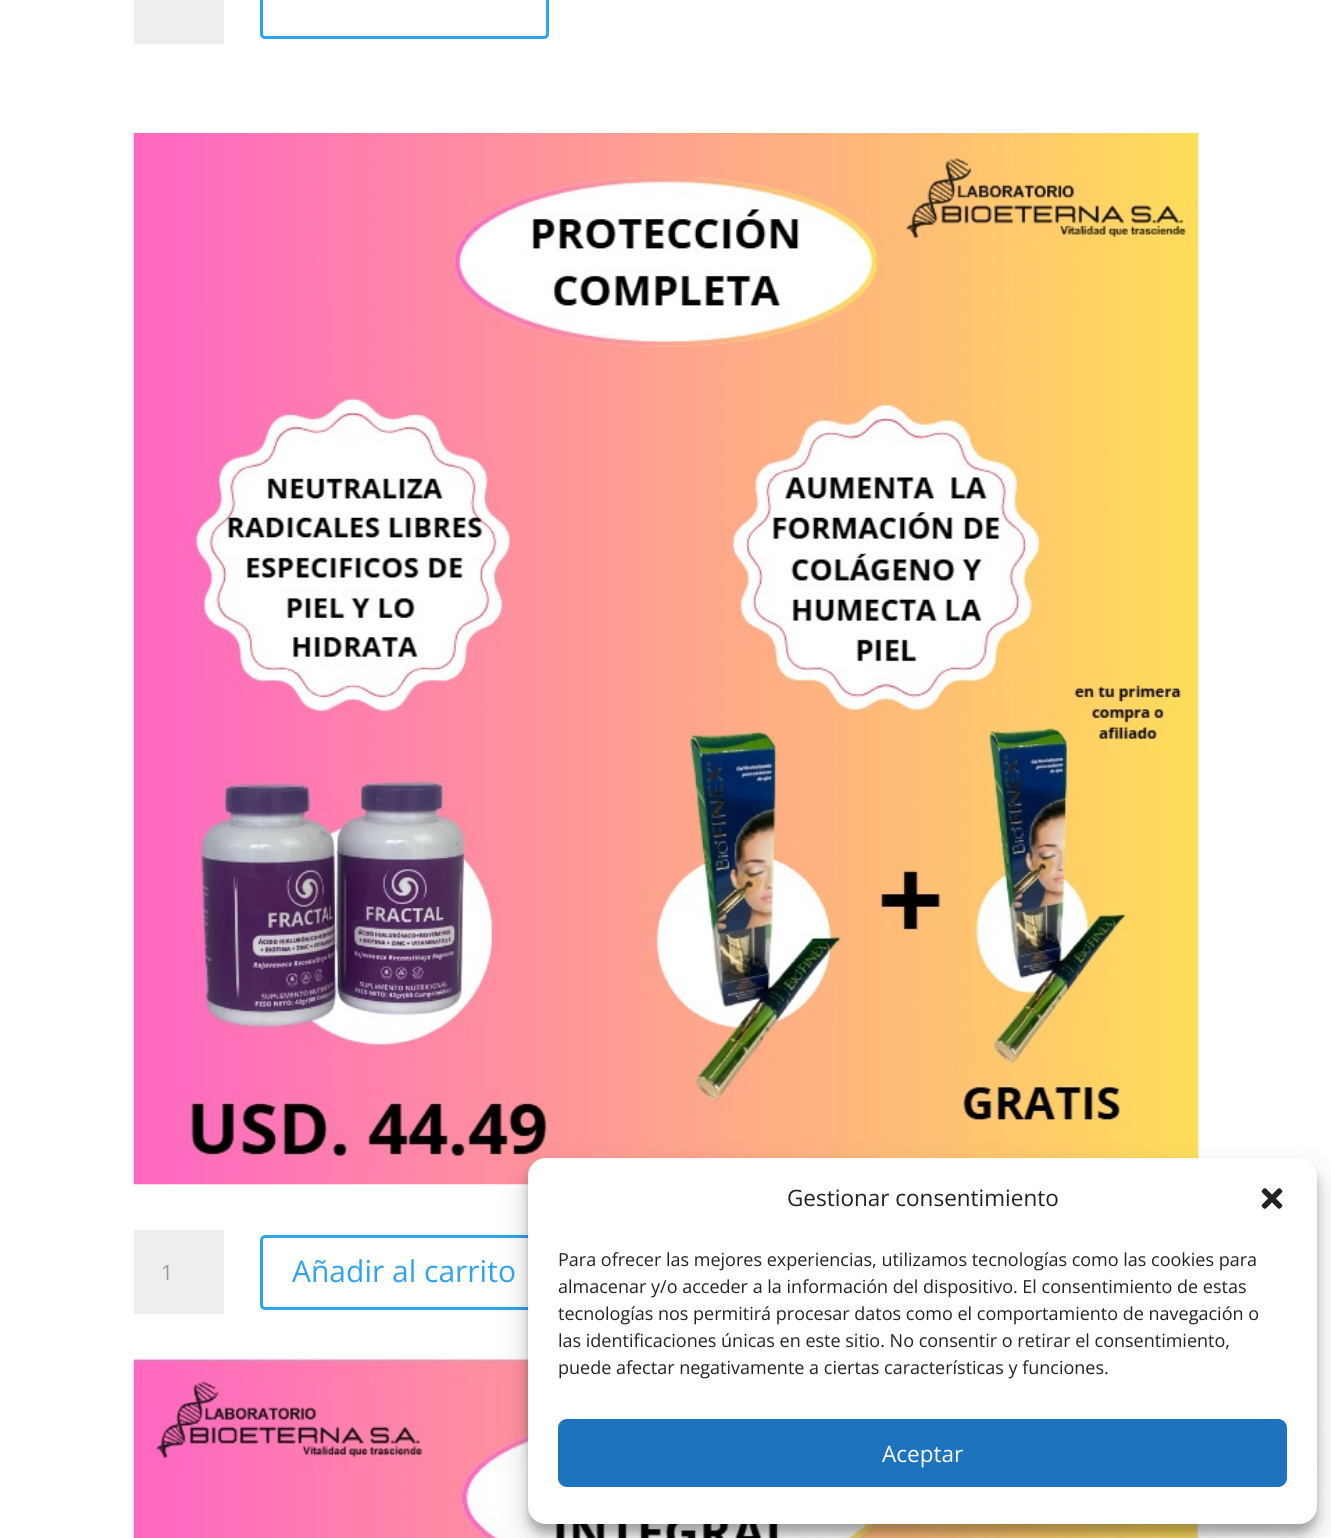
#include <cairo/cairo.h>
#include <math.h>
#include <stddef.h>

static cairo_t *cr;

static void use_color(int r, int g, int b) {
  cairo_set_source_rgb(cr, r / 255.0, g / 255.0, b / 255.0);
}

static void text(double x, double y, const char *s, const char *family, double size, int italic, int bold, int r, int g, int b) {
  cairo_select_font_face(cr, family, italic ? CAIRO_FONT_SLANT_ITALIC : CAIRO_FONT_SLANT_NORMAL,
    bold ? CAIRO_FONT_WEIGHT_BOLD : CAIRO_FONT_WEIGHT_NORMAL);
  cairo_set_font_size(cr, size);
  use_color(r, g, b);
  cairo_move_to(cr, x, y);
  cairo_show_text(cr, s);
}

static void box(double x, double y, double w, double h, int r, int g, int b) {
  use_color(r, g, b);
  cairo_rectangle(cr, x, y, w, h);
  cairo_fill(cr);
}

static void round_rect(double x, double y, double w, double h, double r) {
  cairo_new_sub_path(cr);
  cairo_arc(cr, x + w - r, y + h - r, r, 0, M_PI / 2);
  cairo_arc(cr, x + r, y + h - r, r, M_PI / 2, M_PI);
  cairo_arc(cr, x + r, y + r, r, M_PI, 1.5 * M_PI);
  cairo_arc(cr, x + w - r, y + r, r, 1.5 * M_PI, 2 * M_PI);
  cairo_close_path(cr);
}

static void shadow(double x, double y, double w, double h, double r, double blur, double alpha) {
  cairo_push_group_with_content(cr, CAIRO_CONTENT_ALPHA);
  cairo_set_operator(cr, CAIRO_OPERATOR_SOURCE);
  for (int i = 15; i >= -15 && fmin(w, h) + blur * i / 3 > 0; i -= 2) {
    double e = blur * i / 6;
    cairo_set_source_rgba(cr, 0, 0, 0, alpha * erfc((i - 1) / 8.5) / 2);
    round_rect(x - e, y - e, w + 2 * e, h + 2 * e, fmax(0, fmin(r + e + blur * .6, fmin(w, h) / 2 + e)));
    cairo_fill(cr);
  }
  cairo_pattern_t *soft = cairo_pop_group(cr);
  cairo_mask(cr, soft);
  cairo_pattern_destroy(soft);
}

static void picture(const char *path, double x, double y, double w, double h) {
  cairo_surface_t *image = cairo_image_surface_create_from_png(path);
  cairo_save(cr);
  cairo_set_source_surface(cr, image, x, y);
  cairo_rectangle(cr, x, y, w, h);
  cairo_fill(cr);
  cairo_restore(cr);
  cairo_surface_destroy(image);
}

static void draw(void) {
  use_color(255, 255, 255);
  cairo_paint(cr);
  box(134, 0, 90, 44, 238, 238, 238);
  round_rect(261.5, -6.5, 286, 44, 3.5);
  use_color(46, 163, 242);
  cairo_set_line_width(cr, 3);
  cairo_stroke(cr);
  picture("img_01.png", 133, 133, 1066, 1052);
  box(134, 1230, 90, 84, 238, 238, 238);
  round_rect(261.5, 1236.5, 286, 72, 3.5);
  use_color(46, 163, 242);
  cairo_stroke(cr);
  picture("img_02.png", 133, 1358, 1066, 180);
  use_color(0, 0, 0);
  shadow(528, 1167, 789, 366, 18, 4.5, 0.23);
  shadow(528, 1173, 789, 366, 18, 15, 0.19);
  use_color(7, 94, 84);
  shadow(1202, 1416, 90, 90, 45, 18, 0.24);
  use_color(255, 255, 255);
  round_rect(528, 1158, 789, 366, 18);
  cairo_fill(cr);
  picture("img_03.png", 1261, 1188, 22, 21);
  use_color(30, 115, 190);
  round_rect(559, 1420, 727, 66, 8);
  cairo_fill_preserve(cr);
  cairo_set_line_width(cr, 2);
  cairo_stroke(cr);
  text(161, 1280, "1", "Open Sans", 21, 0, 0, 153, 153, 153);
  text(292, 1282, "Añadir al carrito", "Open Sans", 30, 0, 0, 46, 163, 242);
  text(787, 1206, "Gestionar consentimiento", "Open Sans", 22.5, 0, 0, 34, 34, 34);
  text(558, 1266, "Para ofrecer las mejores experiencias, utilizamos tecnologías como las cookies para", "Open Sans", 18, 0, 0, 34, 34, 34);
  text(558, 1293, "almacenar y/o acceder a la información del dispositivo. El consentimiento de estas", "Open Sans", 18, 0, 0, 34, 34, 34);
  text(558, 1320, "tecnologías nos permitirá procesar datos como el comportamiento de navegación o", "Open Sans", 18, 0, 0, 34, 34, 34);
  text(558, 1347, "las identificaciones únicas en este sitio. No consentir o retirar el consentimiento,", "Open Sans", 18, 0, 0, 34, 34, 34);
  text(558, 1374, "puede afectar negativamente a ciertas características y funciones.", "Open Sans", 18, 0, 0, 34, 34, 34);
  text(882, 1462, "Aceptar", "Open Sans", 22.5, 0, 0, 255, 255, 255);
}

int main(void) {
  cairo_surface_t *surface = cairo_image_surface_create(CAIRO_FORMAT_RGB24, 1331, 1538);
  cr = cairo_create(surface);
  cairo_font_options_t *options = cairo_font_options_create();
  cairo_font_options_set_hint_metrics(options, CAIRO_HINT_METRICS_OFF);
  cairo_font_options_set_hint_style(options, CAIRO_HINT_STYLE_NONE);
  cairo_set_font_options(cr, options);
  cairo_set_miter_limit(cr, 4);
  draw();
  cairo_surface_write_to_png(surface, "out.png");
  cairo_font_options_destroy(options);
  cairo_destroy(cr);
  cairo_surface_destroy(surface);
  return 0;
}
